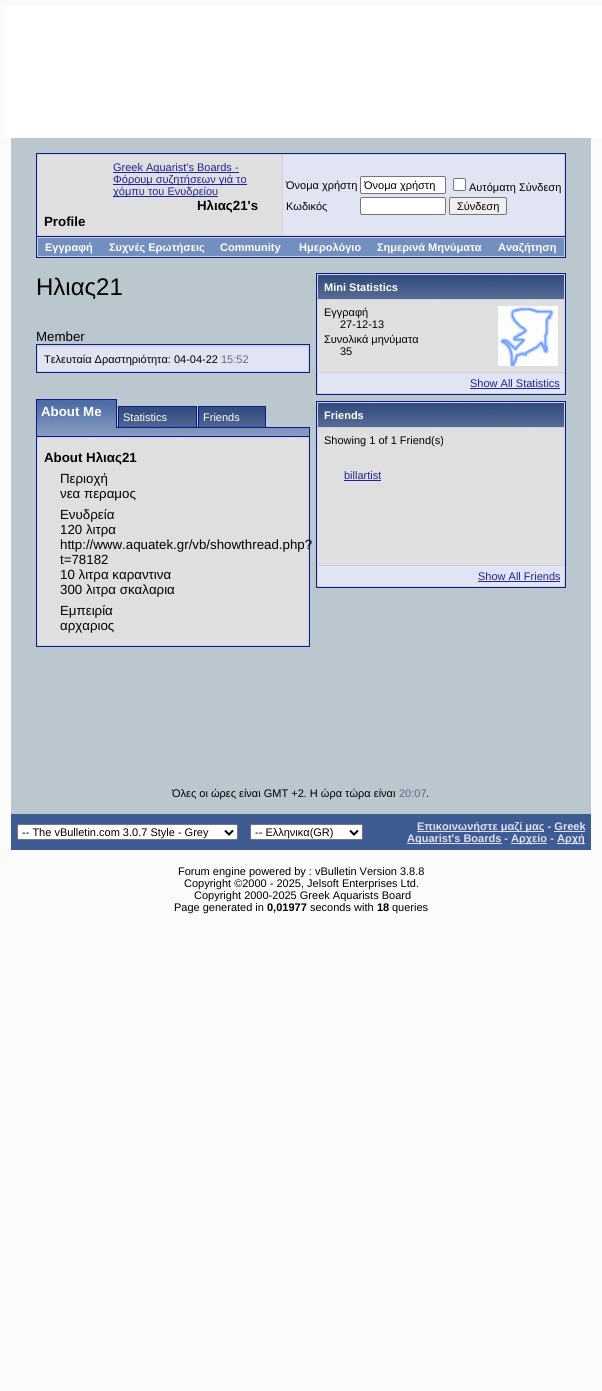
#include <cairo/cairo.h>
#include <math.h>
#include <stddef.h>

static cairo_t *cr;

static void use_color(int r, int g, int b) {
  cairo_set_source_rgb(cr, r / 255.0, g / 255.0, b / 255.0);
}

static void text(double x, double y, const char *s, const char *family, double size, int italic, int bold, int r, int g, int b) {
  cairo_select_font_face(cr, family, italic ? CAIRO_FONT_SLANT_ITALIC : CAIRO_FONT_SLANT_NORMAL,
    bold ? CAIRO_FONT_WEIGHT_BOLD : CAIRO_FONT_WEIGHT_NORMAL);
  cairo_set_font_size(cr, size);
  use_color(r, g, b);
  cairo_move_to(cr, x, y);
  cairo_show_text(cr, s);
}

static void box(double x, double y, double w, double h, int r, int g, int b) {
  use_color(r, g, b);
  cairo_rectangle(cr, x, y, w, h);
  cairo_fill(cr);
}

static void round_rect(double x, double y, double w, double h, double r) {
  cairo_new_sub_path(cr);
  cairo_arc(cr, x + w - r, y + h - r, r, 0, M_PI / 2);
  cairo_arc(cr, x + r, y + h - r, r, M_PI / 2, M_PI);
  cairo_arc(cr, x + r, y + r, r, M_PI, 1.5 * M_PI);
  cairo_arc(cr, x + w - r, y + r, r, 1.5 * M_PI, 2 * M_PI);
  cairo_close_path(cr);
}

static void picture(const char *path, double x, double y, double w, double h) {
  cairo_surface_t *image = cairo_image_surface_create_from_png(path);
  cairo_save(cr);
  cairo_set_source_surface(cr, image, x, y);
  cairo_rectangle(cr, x, y, w, h);
  cairo_fill(cr);
  cairo_restore(cr);
  cairo_surface_destroy(image);
}

static void draw(void) {
  use_color(251, 251, 251);
  cairo_paint(cr);
  box(5, 5, 597, 133, 255, 255, 255);
  box(11, 138, 580, 676, 187, 199, 206);
  use_color(209, 209, 225);
  cairo_rectangle(cr, 36.5, 153.5, 529, 83);
  cairo_fill_preserve(cr);
  use_color(11, 25, 140);
  cairo_set_line_width(cr, 1);
  cairo_stroke(cr);
  box(38, 155, 244, 80, 223, 223, 223);
  box(113, 172, 126, 1, 34, 34, 156);
  box(113, 184, 134, 1, 34, 34, 156);
  box(113, 196, 105, 1, 34, 34, 156);
  box(283, 155, 281, 80, 225, 228, 242);
  use_color(255, 255, 255);
  round_rect(360.5, 176.5, 85, 17, 1.5);
  cairo_fill_preserve(cr);
  use_color(118, 118, 118);
  cairo_stroke(cr);
  use_color(255, 255, 255);
  round_rect(453.5, 178.5, 12, 12, 1.5);
  cairo_fill_preserve(cr);
  use_color(118, 118, 118);
  cairo_stroke(cr);
  use_color(255, 255, 255);
  round_rect(360.5, 197.5, 85, 17, 1.5);
  cairo_fill_preserve(cr);
  use_color(118, 118, 118);
  cairo_stroke(cr);
  use_color(239, 239, 239);
  round_rect(449.5, 197.5, 57, 17, 1.5);
  cairo_fill_preserve(cr);
  use_color(118, 118, 118);
  cairo_stroke(cr);
  box(37, 237, 528, 20, 209, 209, 225);
  box(565, 237, 1, 21, 11, 25, 140);
  box(36, 257, 530, 1, 11, 25, 140);
  box(36, 237, 1, 21, 11, 25, 140);
  box(38, 238, 526, 18, 115, 143, 191);
  use_color(209, 209, 225);
  cairo_rectangle(cr, 36.5, 344.5, 273, 28);
  cairo_fill_preserve(cr);
  use_color(11, 25, 140);
  cairo_stroke(cr);
  box(38, 347, 270, 24, 225, 228, 242);
  picture("img_01.png", 37, 400, 79, 28);
  box(36, 399, 81, 1, 11, 25, 140);
  box(116, 399, 1, 29, 11, 25, 140);
  box(36, 427, 1, 9, 11, 25, 140);
  box(36, 399, 1, 29, 11, 25, 140);
  picture("img_02.png", 119, 407, 77, 20);
  box(117, 427, 193, 1, 11, 25, 140);
  cairo_rectangle(cr, 118.5, 406.5, 78, 21);
  cairo_stroke(cr);
  picture("img_03.png", 199, 407, 66, 20);
  cairo_rectangle(cr, 198.5, 406.5, 67, 21);
  cairo_stroke(cr);
  box(37, 433, 272, 3, 134, 155, 191);
  picture("img_04.png", 37, 428, 272, 5);
  box(309, 427, 1, 9, 11, 25, 140);
  use_color(209, 209, 225);
  cairo_rectangle(cr, 36.5, 436.5, 273, 210);
  cairo_fill_preserve(cr);
  use_color(11, 25, 140);
  cairo_stroke(cr);
  box(38, 438, 270, 207, 223, 223, 223);
  use_color(209, 209, 225);
  cairo_rectangle(cr, 316.5, 273.5, 249, 121);
  cairo_fill_preserve(cr);
  use_color(11, 25, 140);
  cairo_stroke(cr);
  picture("img_05.png", 318, 275, 246, 24);
  box(318, 300, 246, 72, 223, 223, 223);
  picture("img_06.png", 498, 306, 60, 60);
  box(318, 373, 246, 20, 225, 228, 242);
  box(470, 388, 90, 1, 34, 34, 156);
  use_color(209, 209, 225);
  cairo_rectangle(cr, 316.5, 401.5, 249, 186);
  cairo_fill_preserve(cr);
  use_color(11, 25, 140);
  cairo_stroke(cr);
  picture("img_05.png", 318, 403, 246, 24);
  box(318, 428, 246, 137, 223, 223, 223);
  box(344, 480, 37, 1, 34, 34, 156);
  box(318, 566, 246, 20, 225, 228, 242);
  box(478, 581, 82, 1, 34, 34, 156);
  box(11, 814, 580, 36, 62, 92, 146);
  use_color(255, 255, 255);
  round_rect(17.5, 824.5, 220, 15, 1.5);
  cairo_fill_preserve(cr);
  use_color(118, 118, 118);
  cairo_stroke(cr);
  cairo_new_path(cr);
  cairo_move_to(cr, 225, 830.5);
  cairo_line_to(cr, 229, 834.5);
  cairo_line_to(cr, 233, 830.5);
  use_color(0, 0, 0);
  cairo_set_line_width(cr, 2);
  cairo_stroke(cr);
  use_color(255, 255, 255);
  round_rect(250.5, 824.5, 112, 15, 1.5);
  cairo_fill_preserve(cr);
  use_color(118, 118, 118);
  cairo_set_line_width(cr, 1);
  cairo_stroke(cr);
  cairo_new_path(cr);
  cairo_move_to(cr, 350, 830.5);
  cairo_line_to(cr, 354, 834.5);
  cairo_line_to(cr, 358, 830.5);
  use_color(0, 0, 0);
  cairo_set_line_width(cr, 2);
  cairo_stroke(cr);
  box(417, 831, 127, 1, 224, 224, 246);
  box(554, 831, 31, 1, 224, 224, 246);
  box(407, 843, 95, 1, 224, 224, 246);
  box(511, 843, 36, 1, 224, 224, 246);
  box(557, 843, 28, 1, 224, 224, 246);
  text(113, 171, "Greek Aquarist's Boards -", "Liberation Sans", 11, 0, 0, 34, 34, 156);
  text(113, 183, "Φόρουμ συζητήσεων γιά το", "Liberation Sans", 11, 0, 0, 34, 34, 156);
  text(113, 195, "χόμπυ του Ενυδρείου", "Liberation Sans", 11, 0, 0, 34, 34, 156);
  text(197, 210, "Ηλιας21's", "Liberation Sans", 13.3, 0, 1, 0, 0, 0);
  text(44, 226, "Profile", "Liberation Sans", 13.3, 0, 1, 0, 0, 0);
  text(286, 189, "Όνομα χρήστη", "Liberation Sans", 11, 0, 0, 0, 0, 0);
  cairo_save(cr);
  cairo_rectangle(cr, 364, 179, 78, 12);
  cairo_clip(cr);
  text(364, 189, "Όνομα χρήστη", "Liberation Sans", 11, 0, 0, 0, 0, 0);
  cairo_restore(cr);
  text(469, 191, "Αυτόματη Σύνδεση", "Liberation Sans", 11, 0, 0, 0, 0, 0);
  text(286, 210, "Κωδικός", "Liberation Sans", 11, 0, 0, 0, 0, 0);
  text(457, 210, "Σύνδεση", "Liberation Sans", 11, 0, 0, 0, 0, 0);
  text(45, 251, "Εγγραφή", "Liberation Sans", 11, 0, 1, 255, 255, 255);
  text(109, 251, "Συχνές Ερωτήσεις", "Liberation Sans", 11, 0, 1, 255, 255, 255);
  text(220, 251, "Community", "Liberation Sans", 11, 0, 1, 255, 255, 255);
  text(299, 251, "Ημερολόγιο", "Liberation Sans", 11, 0, 1, 255, 255, 255);
  text(377, 251, "Σημερινά Μηνύματα", "Liberation Sans", 11, 0, 1, 255, 255, 255);
  text(498, 251, "Αναζήτηση", "Liberation Sans", 11, 0, 1, 255, 255, 255);
  text(36, 295, "Ηλιας21", "Liberation Sans", 24, 0, 0, 0, 0, 0);
  text(36, 341, "Member", "Liberation Sans", 13.3, 0, 0, 0, 0, 0);
  text(44, 363, "Τελευταία Δραστηριότητα: 04-04-22", "Liberation Sans", 11, 0, 0, 0, 0, 0);
  text(221, 363, "15:52", "Liberation Sans", 11, 0, 0, 102, 102, 134);
  text(41, 416, "About Me", "Liberation Sans", 13.3, 0, 1, 255, 255, 255);
  text(123, 421, "Statistics", "Liberation Sans", 11, 0, 0, 255, 255, 255);
  text(203, 421, "Friends", "Liberation Sans", 11, 0, 0, 255, 255, 255);
  text(44, 462, "About Ηλιας21", "Liberation Sans", 13.3, 0, 1, 0, 0, 0);
  text(60, 483, "Περιοχή", "Liberation Sans", 13.3, 0, 0, 0, 0, 0);
  text(60, 498, "νεα περαμος", "Liberation Sans", 13.3, 0, 0, 0, 0, 0);
  text(60, 519, "Ενυδρεία", "Liberation Sans", 13.3, 0, 0, 0, 0, 0);
  text(60, 534, "120 λιτρα", "Liberation Sans", 13.3, 0, 0, 0, 0, 0);
  text(60, 549, "http://www.aquatek.gr/vb/showthread.php?", "Liberation Sans", 13.3, 0, 0, 0, 0, 0);
  text(60, 564, "t=78182", "Liberation Sans", 13.3, 0, 0, 0, 0, 0);
  text(60, 579, "10 λιτρα καραντινα", "Liberation Sans", 13.3, 0, 0, 0, 0, 0);
  text(60, 594, "300 λιτρα σκαλαρια", "Liberation Sans", 13.3, 0, 0, 0, 0, 0);
  text(60, 615, "Εμπειρία", "Liberation Sans", 13.3, 0, 0, 0, 0, 0);
  text(60, 630, "αρχαριος", "Liberation Sans", 13.3, 0, 0, 0, 0, 0);
  text(324, 291, "Mini Statistics", "Liberation Sans", 11, 0, 1, 255, 255, 255);
  text(324, 316, "Εγγραφή", "Liberation Sans", 11, 0, 0, 0, 0, 0);
  text(340, 328, "27-12-13", "Liberation Sans", 11, 0, 0, 0, 0, 0);
  text(324, 343, "Συνολικά μηνύματα", "Liberation Sans", 11, 0, 0, 0, 0, 0);
  text(340, 355, "35", "Liberation Sans", 11, 0, 0, 0, 0, 0);
  text(470, 387, "Show All Statistics", "Liberation Sans", 11, 0, 0, 34, 34, 156);
  text(324, 419, "Friends", "Liberation Sans", 11, 0, 1, 255, 255, 255);
  text(324, 444, "Showing 1 of 1 Friend(s)", "Liberation Sans", 11, 0, 0, 0, 0, 0);
  text(344, 479, "billartist", "Liberation Sans", 11, 0, 0, 34, 34, 156);
  text(478, 580, "Show All Friends", "Liberation Sans", 11, 0, 0, 34, 34, 156);
  text(172, 797, "Όλες οι ώρες είναι GMT +2. Η ώρα τώρα είναι", "Liberation Sans", 11, 0, 0, 0, 0, 0);
  text(399, 797, "20:07", "Liberation Sans", 11, 0, 0, 102, 102, 134);
  text(426, 797, ".", "Liberation Sans", 11, 0, 0, 0, 0, 0);
  text(22, 836, "-- The vBulletin.com 3.0.7 Style - Grey", "Liberation Sans", 11, 0, 0, 0, 0, 0);
  text(255, 836, "-- Ελληνικα(GR)", "Liberation Sans", 11, 0, 0, 0, 0, 0);
  text(417, 830, "Επικοινωνήστε μαζί μας - Greek", "Liberation Sans", 11, 0, 1, 224, 224, 246);
  text(407, 842, "Aquarist's Boards -", "Liberation Sans", 11, 0, 1, 224, 224, 246);
  text(511, 842, "Αρχείο -", "Liberation Sans", 11, 0, 1, 224, 224, 246);
  text(557, 842, "Αρχή", "Liberation Sans", 11, 0, 1, 224, 224, 246);
  text(178, 875, "Forum engine powered by : vBulletin Version 3.8.8", "Liberation Sans", 11, 0, 0, 0, 0, 0);
  text(184, 887, "Copyright ©2000 - 2025, Jelsoft Enterprises Ltd.", "Liberation Sans", 11, 0, 0, 0, 0, 0);
  text(194, 899, "Copyright 2000-2025 Greek Aquarists Board", "Liberation Sans", 11, 0, 0, 0, 0, 0);
  text(174, 911, "Page generated in", "Liberation Sans", 11, 0, 0, 0, 0, 0);
  text(267, 911, "0,01977", "Liberation Sans", 11, 0, 1, 0, 0, 0);
  text(310, 911, "seconds with", "Liberation Sans", 11, 0, 0, 0, 0, 0);
  text(377, 911, "18", "Liberation Sans", 11, 0, 1, 0, 0, 0);
  text(392, 911, "queries", "Liberation Sans", 11, 0, 0, 0, 0, 0);
}

int main(void) {
  cairo_surface_t *surface = cairo_image_surface_create(CAIRO_FORMAT_RGB24, 602, 1391);
  cr = cairo_create(surface);
  cairo_font_options_t *options = cairo_font_options_create();
  cairo_font_options_set_hint_metrics(options, CAIRO_HINT_METRICS_OFF);
  cairo_font_options_set_hint_style(options, CAIRO_HINT_STYLE_NONE);
  cairo_set_font_options(cr, options);
  cairo_set_miter_limit(cr, 4);
  draw();
  cairo_surface_write_to_png(surface, "out.png");
  cairo_font_options_destroy(options);
  cairo_destroy(cr);
  cairo_surface_destroy(surface);
  return 0;
}
